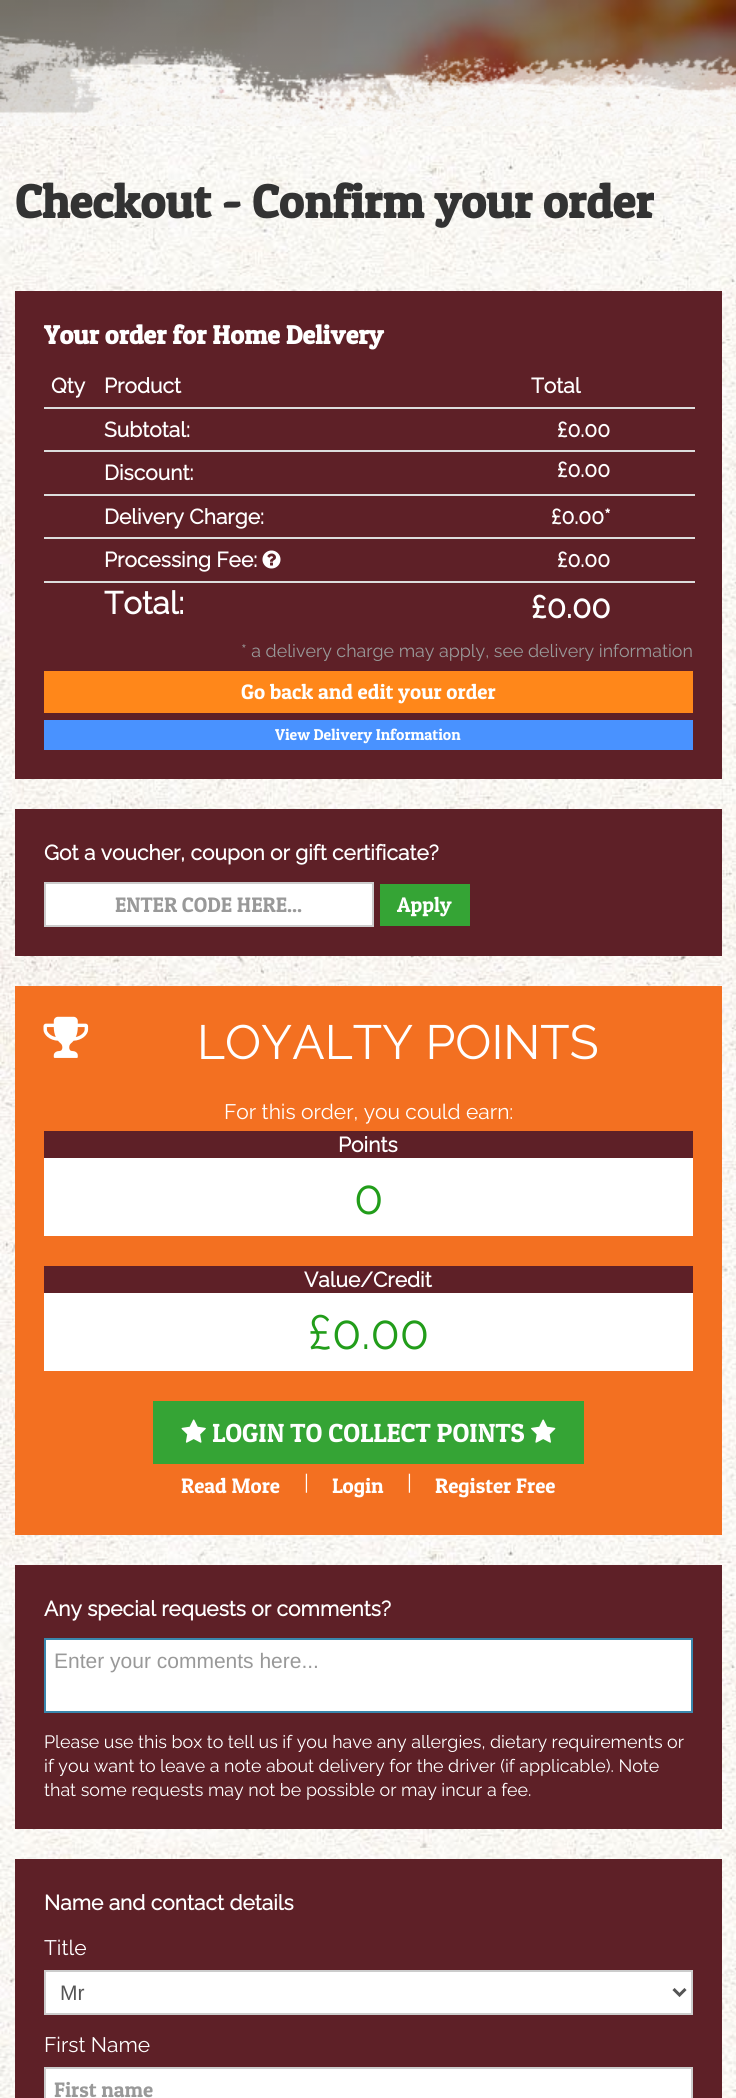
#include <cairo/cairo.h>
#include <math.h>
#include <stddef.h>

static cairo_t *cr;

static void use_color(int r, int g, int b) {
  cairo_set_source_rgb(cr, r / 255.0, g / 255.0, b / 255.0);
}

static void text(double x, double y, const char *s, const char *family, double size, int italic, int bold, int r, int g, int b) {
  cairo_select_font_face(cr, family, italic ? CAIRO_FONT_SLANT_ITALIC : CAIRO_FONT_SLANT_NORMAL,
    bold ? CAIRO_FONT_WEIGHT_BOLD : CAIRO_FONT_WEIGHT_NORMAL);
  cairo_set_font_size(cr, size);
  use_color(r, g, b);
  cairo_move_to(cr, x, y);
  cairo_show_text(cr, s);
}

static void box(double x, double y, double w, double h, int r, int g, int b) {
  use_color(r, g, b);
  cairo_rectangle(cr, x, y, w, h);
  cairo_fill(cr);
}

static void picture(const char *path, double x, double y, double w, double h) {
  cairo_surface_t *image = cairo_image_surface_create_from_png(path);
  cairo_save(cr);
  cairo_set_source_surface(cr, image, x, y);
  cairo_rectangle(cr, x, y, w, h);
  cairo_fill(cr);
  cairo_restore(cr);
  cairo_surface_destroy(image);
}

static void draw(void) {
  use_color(255, 255, 255);
  cairo_paint(cr);
  picture("img_01.png", 0, 126, 736, 1972);
  picture("img_02.png", 0, 0, 736, 113);
  picture("img_03.png", 0, 35, 736, 91);
  box(15, 291, 707, 488, 94, 32, 39);
  box(44, 407, 651, 2, 221, 221, 221);
  box(44, 450, 651, 2, 221, 221, 221);
  box(44, 494, 651, 2, 221, 221, 221);
  box(44, 537, 651, 2, 221, 221, 221);
  picture("img_04.png", 262, 550, 19, 19);
  box(44, 581, 651, 2, 221, 221, 221);
  box(44, 671, 649, 42, 255, 135, 26);
  box(44, 720, 649, 30, 73, 146, 255);
  box(15, 809, 707, 147, 94, 32, 39);
  use_color(255, 255, 255);
  cairo_rectangle(cr, 45, 883, 328, 43);
  cairo_fill_preserve(cr);
  use_color(204, 204, 204);
  cairo_stroke(cr);
  box(380, 884, 90, 42, 53, 164, 53);
  box(15, 986, 707, 549, 243, 112, 33);
  picture("img_05.png", 43, 1016, 46, 42);
  box(44, 1131, 649, 27, 94, 32, 39);
  box(44, 1158, 649, 78, 255, 255, 255);
  box(44, 1266, 649, 27, 94, 32, 39);
  box(44, 1293, 649, 78, 255, 255, 255);
  box(153, 1401, 431, 63, 53, 164, 53);
  picture("img_06.png", 181, 1419, 25, 24);
  picture("img_07.png", 531, 1419, 25, 24);
  box(15, 1565, 707, 264, 94, 32, 39);
  use_color(255, 255, 255);
  cairo_rectangle(cr, 45, 1639, 647, 73);
  cairo_fill_preserve(cr);
  use_color(58, 135, 173);
  cairo_stroke(cr);
  box(15, 1859, 707, 239, 94, 32, 39);
  use_color(255, 255, 255);
  cairo_rectangle(cr, 45, 1971, 647, 43);
  cairo_fill_preserve(cr);
  use_color(204, 204, 204);
  cairo_stroke(cr);
  cairo_new_path(cr);
  cairo_move_to(cr, 673.5, 1989);
  cairo_line_to(cr, 679.5, 1995);
  cairo_line_to(cr, 685.5, 1989);
  use_color(85, 85, 85);
  cairo_set_line_width(cr, 3);
  cairo_stroke(cr);
  use_color(255, 255, 255);
  cairo_rectangle(cr, 45, 2068, 647, 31);
  cairo_fill_preserve(cr);
  use_color(204, 204, 204);
  cairo_set_line_width(cr, 2);
  cairo_stroke(cr);
  text(15, 218, "Checkout - Confirm your order", "Patua One", 47.25, 0, 1, 51, 51, 51);
  text(44, 344, "Your order for Home Delivery", "Patua One", 26.25, 0, 1, 255, 255, 255);
  text(51, 393, "Qty", "Raleway", 21, 0, 1, 255, 255, 255);
  text(104, 393, "Product", "Raleway", 21, 0, 1, 255, 255, 255);
  text(531, 393, "Total", "Raleway", 21, 0, 1, 255, 255, 255);
  text(104, 437, "Subtotal:", "Raleway", 21, 0, 1, 255, 255, 255);
  text(557, 437, "£0.00", "Raleway", 21, 0, 1, 255, 255, 255);
  text(104, 480, "Discount:", "Raleway", 21, 0, 1, 255, 255, 255);
  text(557, 477, "£0.00", "Raleway", 21, 0, 1, 255, 255, 255);
  text(104, 524, "Delivery Charge:", "Raleway", 21, 0, 1, 255, 255, 255);
  text(551, 524, "£0.00*", "Raleway", 21, 0, 1, 255, 255, 255);
  text(104, 567, "Processing Fee:", "Raleway", 21, 0, 1, 255, 255, 255);
  text(557, 567, "£0.00", "Raleway", 21, 0, 1, 255, 255, 255);
  text(104, 614, "Total:", "Raleway", 31.5, 0, 1, 255, 255, 255);
  text(531, 618, "£0.00", "Raleway", 31.5, 0, 1, 255, 255, 255);
  text(241, 657, "* a delivery charge may apply, see delivery information", "Raleway Thin", 17.85, 0, 0, 153, 153, 153);
  text(241, 699, "Go back and edit your order", "Patua One", 21, 0, 0, 255, 255, 255);
  text(275, 740, "View Delivery Information", "Patua One", 15.75, 0, 0, 255, 255, 255);
  text(44, 860, "Got a voucher, coupon or gift certificate?", "Raleway", 21, 0, 1, 255, 255, 255);
  text(115, 912, "ENTER CODE HERE...", "Patua One", 21, 0, 0, 153, 153, 153);
  text(397, 912, "Apply", "Patua One", 21, 0, 0, 255, 255, 255);
  text(197, 1059, "LOYALTY POINTS", "Raleway Thin", 48, 0, 0, 255, 255, 255);
  text(224, 1119, "For this order, you could earn:", "Raleway Thin", 21, 0, 0, 255, 255, 255);
  text(338, 1152, "Points", "Raleway", 21, 0, 1, 255, 255, 255);
  text(354, 1214, "0", "Raleway Thin", 48, 0, 0, 34, 157, 26);
  text(304, 1287, "Value/Credit", "Raleway", 21, 0, 1, 255, 255, 255);
  text(308, 1349, "£0.00", "Raleway Thin", 48, 0, 0, 34, 157, 26);
  text(212, 1442, "LOGIN TO COLLECT POINTS", "Patua One", 26.25, 0, 0, 255, 255, 255);
  text(181, 1493, "Read More", "Patua One", 21, 0, 0, 255, 255, 255);
  text(304, 1490, "|", "Raleway Thin", 21, 0, 0, 255, 255, 255);
  text(332, 1493, "Login", "Patua One", 21, 0, 0, 255, 255, 255);
  text(407, 1490, "|", "Raleway Thin", 21, 0, 0, 255, 255, 255);
  text(435, 1493, "Register Free", "Patua One", 21, 0, 0, 255, 255, 255);
  text(44, 1616, "Any special requests or comments?", "Raleway", 21, 0, 1, 255, 255, 255);
  text(54, 1668, "Enter your comments here...", "Liberation Sans", 21, 0, 0, 153, 153, 153);
  text(44, 1748, "Please use this box to tell us if you have any allergies, dietary requirements or", "Raleway Thin", 17.85, 0, 0, 255, 255, 255);
  text(44, 1772, "if you want to leave a note about delivery for the driver (if applicable). Note", "Raleway Thin", 17.85, 0, 0, 255, 255, 255);
  text(44, 1796, "that some requests may not be possible or may incur a fee.", "Raleway Thin", 17.85, 0, 0, 255, 255, 255);
  text(44, 1910, "Name and contact details", "Raleway", 21, 0, 1, 255, 255, 255);
  text(44, 1955, "Title", "Raleway Thin", 21, 0, 0, 255, 255, 255);
  text(60, 2000, "Mr", "Liberation Sans", 21, 0, 0, 85, 85, 85);
  text(44, 2052, "First Name", "Raleway Thin", 21, 0, 0, 255, 255, 255);
  text(54, 2097, "First name", "Patua One", 21, 0, 0, 153, 153, 153);
}

int main(void) {
  cairo_surface_t *surface = cairo_image_surface_create(CAIRO_FORMAT_RGB24, 736, 2098);
  cr = cairo_create(surface);
  cairo_font_options_t *options = cairo_font_options_create();
  cairo_font_options_set_hint_metrics(options, CAIRO_HINT_METRICS_OFF);
  cairo_font_options_set_hint_style(options, CAIRO_HINT_STYLE_NONE);
  cairo_set_font_options(cr, options);
  cairo_set_miter_limit(cr, 4);
  draw();
  cairo_surface_write_to_png(surface, "out.png");
  cairo_font_options_destroy(options);
  cairo_destroy(cr);
  cairo_surface_destroy(surface);
  return 0;
}
